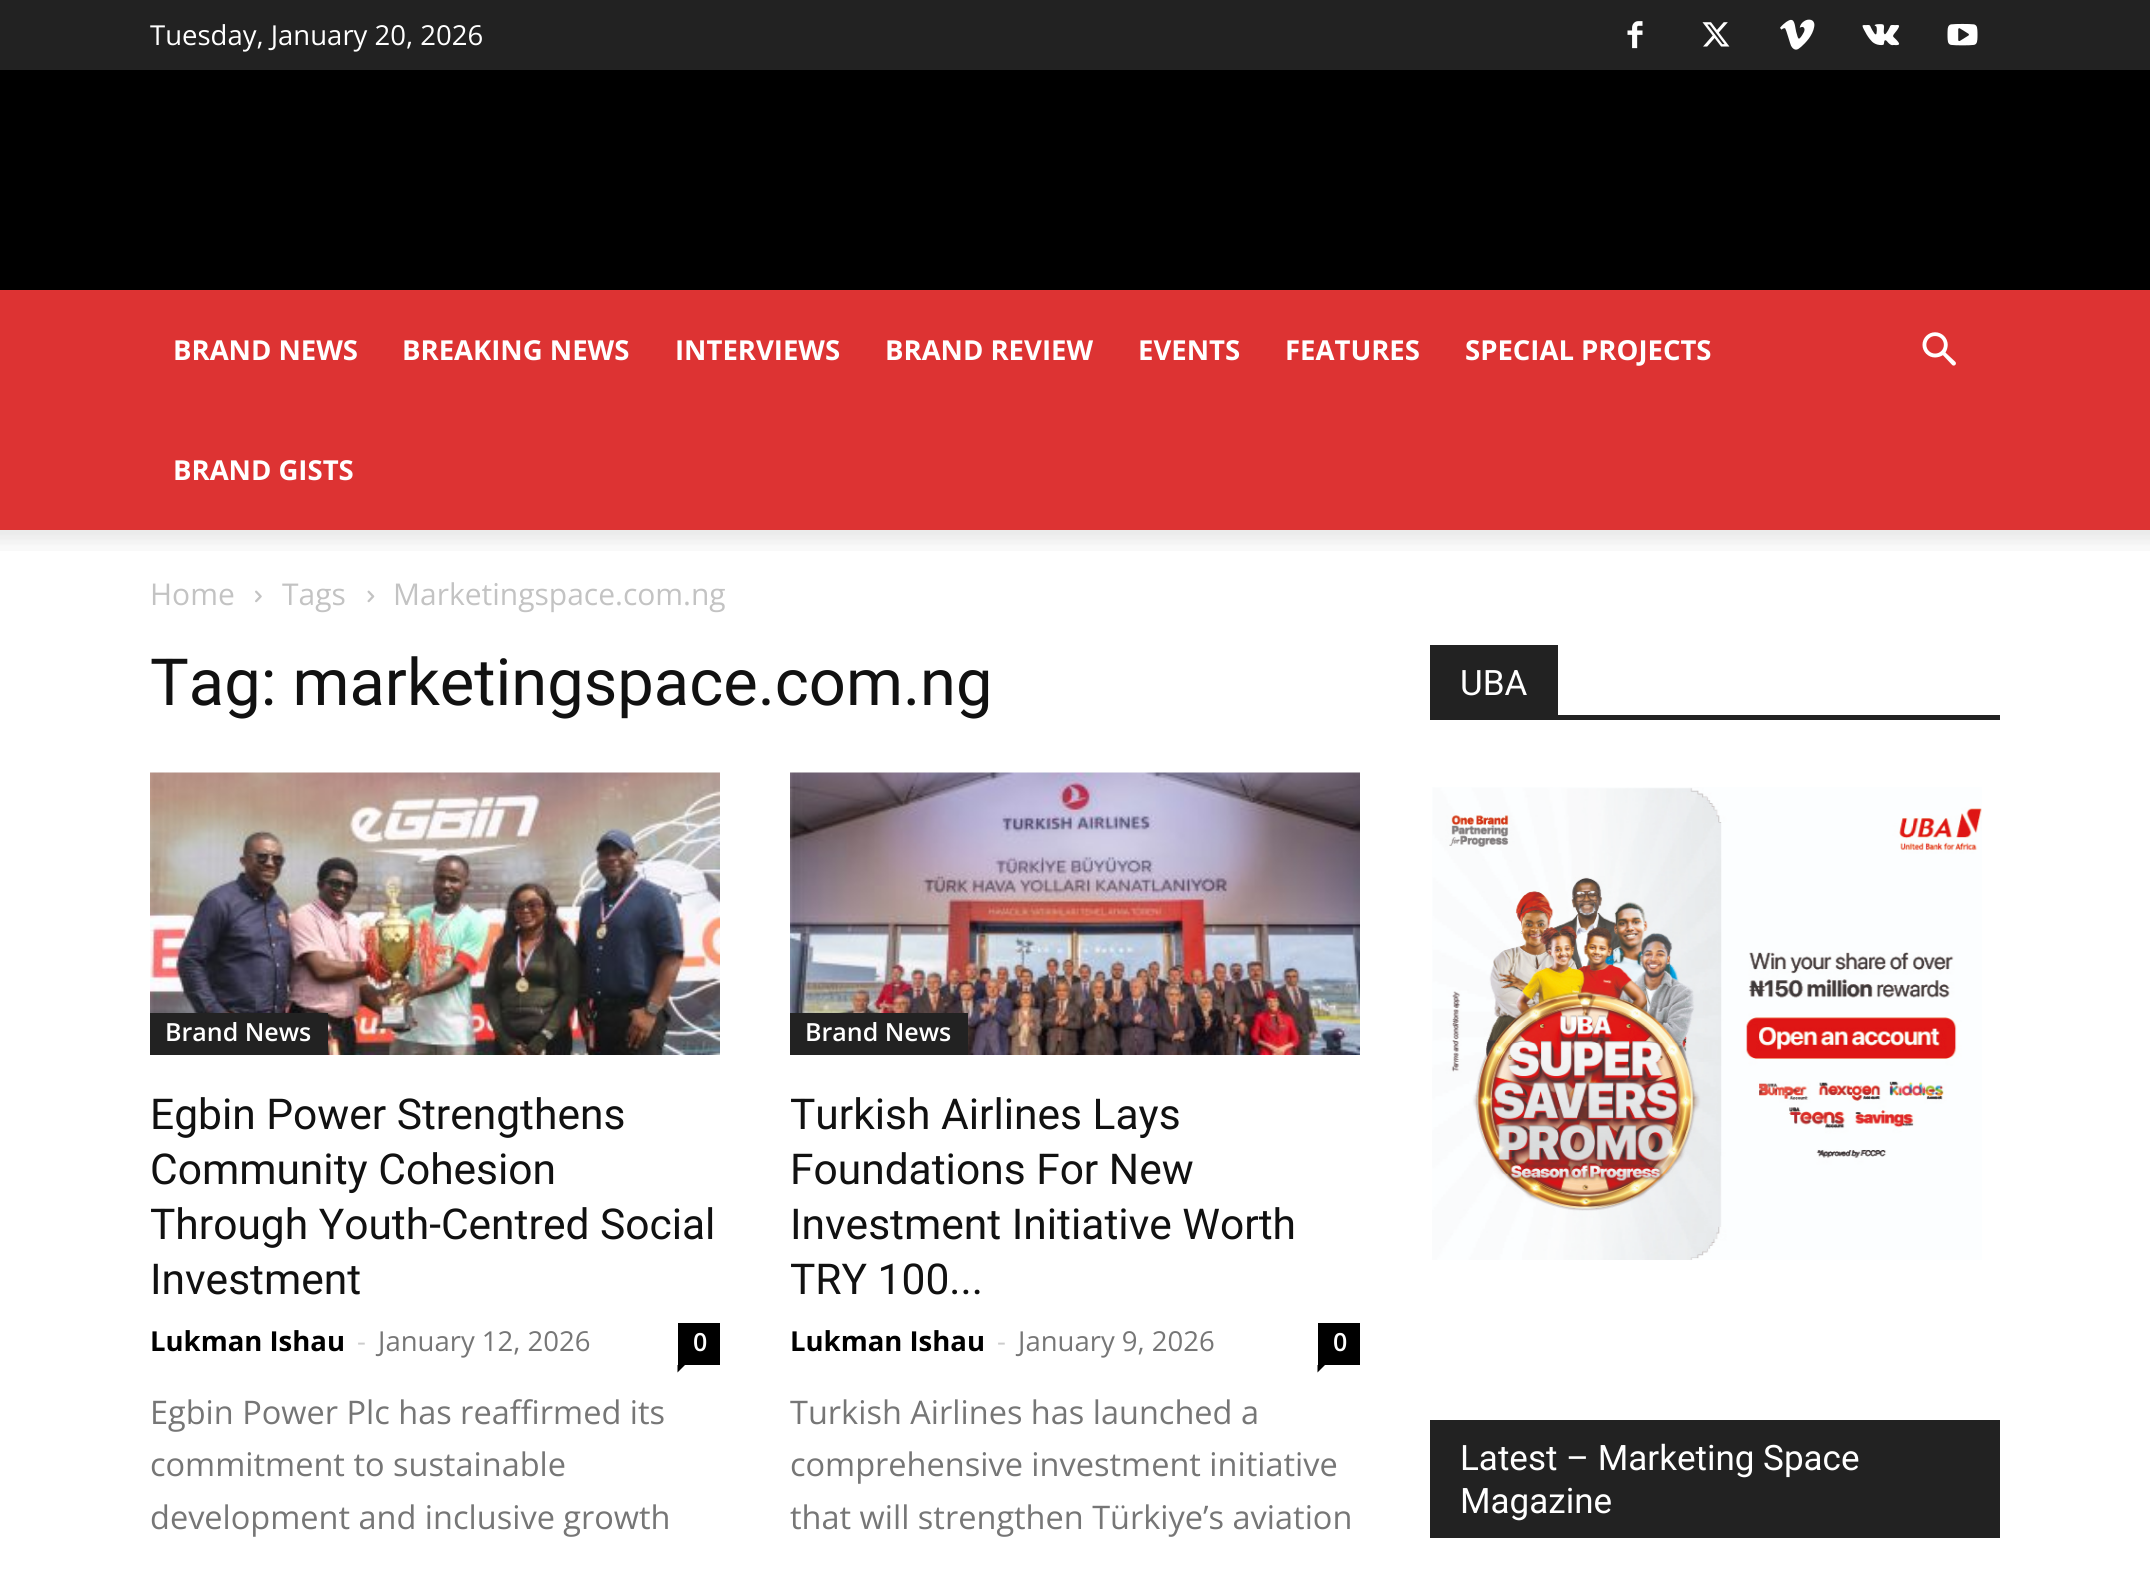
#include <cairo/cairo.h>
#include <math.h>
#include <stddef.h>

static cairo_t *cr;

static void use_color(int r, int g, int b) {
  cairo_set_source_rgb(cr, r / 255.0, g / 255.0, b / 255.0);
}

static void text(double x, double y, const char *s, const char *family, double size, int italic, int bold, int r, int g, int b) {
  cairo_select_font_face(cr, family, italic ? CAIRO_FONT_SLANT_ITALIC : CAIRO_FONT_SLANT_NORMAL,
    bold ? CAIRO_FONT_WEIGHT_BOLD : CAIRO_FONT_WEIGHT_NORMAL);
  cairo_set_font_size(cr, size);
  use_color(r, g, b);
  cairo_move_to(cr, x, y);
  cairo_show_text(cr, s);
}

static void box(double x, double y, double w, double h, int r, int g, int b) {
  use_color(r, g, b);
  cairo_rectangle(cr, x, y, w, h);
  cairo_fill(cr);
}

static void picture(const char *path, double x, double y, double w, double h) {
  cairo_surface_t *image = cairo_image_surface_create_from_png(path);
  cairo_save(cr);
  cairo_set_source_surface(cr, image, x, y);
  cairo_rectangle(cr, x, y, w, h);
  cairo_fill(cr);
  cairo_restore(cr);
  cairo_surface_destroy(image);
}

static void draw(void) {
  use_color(255, 255, 255);
  cairo_paint(cr);
  box(0, 0, 2150, 70, 34, 34, 34);
  picture("img_01.png", 1627, 21, 16, 28);
  picture("img_02.png", 1702, 22, 28, 25);
  picture("img_03.png", 1780, 19, 35, 31);
  picture("img_04.png", 1862, 24, 38, 22);
  picture("img_05.png", 1947, 23, 31, 23);
  box(0, 70, 2150, 220, 0, 0, 0);
  box(0, 290, 2150, 240, 221, 51, 51);
  picture("img_06.png", 1922, 332, 34, 34);
  picture("img_07.png", 0, 530, 2150, 21);
  picture("img_08.png", 255, 590, 7, 13);
  picture("img_09.png", 367, 590, 8, 13);
  picture("img_10.png", 150, 772, 570, 283);
  box(150, 1013, 178, 42, 34, 34, 34);
  box(678, 1323, 42, 42, 0, 0, 0);
  cairo_new_path(cr);
  cairo_move_to(cr, 677.5, 1365);
  cairo_line_to(cr, 685, 1365);
  cairo_line_to(cr, 677.5, 1372.5);
  cairo_close_path(cr);
  cairo_fill(cr);
  picture("img_11.png", 790, 772, 570, 283);
  box(790, 1013, 178, 42, 34, 34, 34);
  box(1318, 1323, 42, 42, 0, 0, 0);
  cairo_new_path(cr);
  cairo_move_to(cr, 1317.5, 1365);
  cairo_line_to(cr, 1325, 1365);
  cairo_line_to(cr, 1317.5, 1372.5);
  cairo_close_path(cr);
  cairo_fill(cr);
  box(1430, 715, 570, 5, 34, 34, 34);
  box(1430, 645, 128, 70, 34, 34, 34);
  picture("img_12.png", 1432, 787, 550, 473);
  box(1430, 1420, 570, 118, 34, 34, 34);
  text(150, 45, "Tuesday, January 20, 2026", "Open Sans", 27.5, 0, 0, 255, 255, 255);
  text(173, 360, "BRAND NEWS", "Open Sans", 27.5, 0, 1, 255, 255, 255);
  text(402, 360, "BREAKING NEWS", "Open Sans", 27.5, 0, 1, 255, 255, 255);
  text(675, 360, "INTERVIEWS", "Open Sans", 27.5, 0, 1, 255, 255, 255);
  text(885, 360, "BRAND REVIEW", "Open Sans", 27.5, 0, 1, 255, 255, 255);
  text(1138, 360, "EVENTS", "Open Sans", 27.5, 0, 1, 255, 255, 255);
  text(1285, 360, "FEATURES", "Open Sans", 27.5, 0, 1, 255, 255, 255);
  text(1465, 360, "SPECIAL PROJECTS", "Open Sans", 27.5, 0, 1, 255, 255, 255);
  text(173, 480, "BRAND GISTS", "Open Sans", 27.5, 0, 1, 255, 255, 255);
  text(150, 605, "Home", "Open Sans", 30, 0, 0, 195, 195, 195);
  text(282, 605, "Tags", "Open Sans", 30, 0, 0, 195, 195, 195);
  text(393, 605, "Marketingspace.com.ng", "Open Sans", 30, 0, 0, 195, 195, 195);
  text(150, 705, "Tag: marketingspace.com.ng", "Roboto", 65, 0, 0, 17, 17, 17);
  text(165, 1041, "Brand News", "Open Sans SemiBold", 25, 0, 0, 255, 255, 255);
  text(150, 1129, "Egbin Power Strengthens", "Roboto", 42.5, 0, 0, 17, 17, 17);
  text(150, 1184, "Community Cohesion", "Roboto", 42.5, 0, 0, 17, 17, 17);
  text(150, 1239, "Through Youth-Centred Social", "Roboto", 42.5, 0, 0, 17, 17, 17);
  text(150, 1294, "Investment", "Roboto", 42.5, 0, 0, 17, 17, 17);
  text(150, 1351, "Lukman Ishau", "Open Sans", 27.5, 0, 1, 0, 0, 0);
  text(357, 1351, "-", "Open Sans", 27.5, 0, 0, 204, 204, 204);
  text(378, 1351, "January 12, 2026", "Open Sans", 27.5, 0, 0, 118, 118, 118);
  text(693, 1351, "0", "Open Sans SemiBold", 25, 0, 0, 255, 255, 255);
  text(150, 1424, "Egbin Power Plc has reaffirmed its", "Open Sans", 32.5, 0, 0, 118, 118, 118);
  text(150, 1476, "commitment to sustainable", "Open Sans", 32.5, 0, 0, 118, 118, 118);
  text(150, 1529, "development and inclusive growth", "Open Sans", 32.5, 0, 0, 118, 118, 118);
  text(805, 1041, "Brand News", "Open Sans SemiBold", 25, 0, 0, 255, 255, 255);
  text(790, 1129, "Turkish Airlines Lays", "Roboto", 42.5, 0, 0, 17, 17, 17);
  text(790, 1184, "Foundations For New", "Roboto", 42.5, 0, 0, 17, 17, 17);
  text(790, 1239, "Investment Initiative Worth", "Roboto", 42.5, 0, 0, 17, 17, 17);
  text(790, 1294, "TRY 100...", "Roboto", 42.5, 0, 0, 17, 17, 17);
  text(790, 1351, "Lukman Ishau", "Open Sans", 27.5, 0, 1, 0, 0, 0);
  text(997, 1351, "-", "Open Sans", 27.5, 0, 0, 204, 204, 204);
  text(1018, 1351, "January 9, 2026", "Open Sans", 27.5, 0, 0, 118, 118, 118);
  text(1333, 1351, "0", "Open Sans SemiBold", 25, 0, 0, 255, 255, 255);
  text(790, 1424, "Turkish Airlines has launched a", "Open Sans", 32.5, 0, 0, 118, 118, 118);
  text(790, 1476, "comprehensive investment initiative", "Open Sans", 32.5, 0, 0, 118, 118, 118);
  text(790, 1529, "that will strengthen Türkiye’s aviation", "Open Sans", 32.5, 0, 0, 118, 118, 118);
  text(1460, 695, "UBA", "Roboto", 35, 0, 0, 255, 255, 255);
  text(1460, 1470, "Latest – Marketing Space", "Roboto", 35, 0, 0, 255, 255, 255);
  text(1460, 1513, "Magazine", "Roboto", 35, 0, 0, 255, 255, 255);
}

int main(void) {
  cairo_surface_t *surface = cairo_image_surface_create(CAIRO_FORMAT_RGB24, 2150, 1573);
  cr = cairo_create(surface);
  cairo_font_options_t *options = cairo_font_options_create();
  cairo_font_options_set_hint_metrics(options, CAIRO_HINT_METRICS_OFF);
  cairo_font_options_set_hint_style(options, CAIRO_HINT_STYLE_NONE);
  cairo_set_font_options(cr, options);
  cairo_set_miter_limit(cr, 4);
  draw();
  cairo_surface_write_to_png(surface, "out.png");
  cairo_font_options_destroy(options);
  cairo_destroy(cr);
  cairo_surface_destroy(surface);
  return 0;
}
